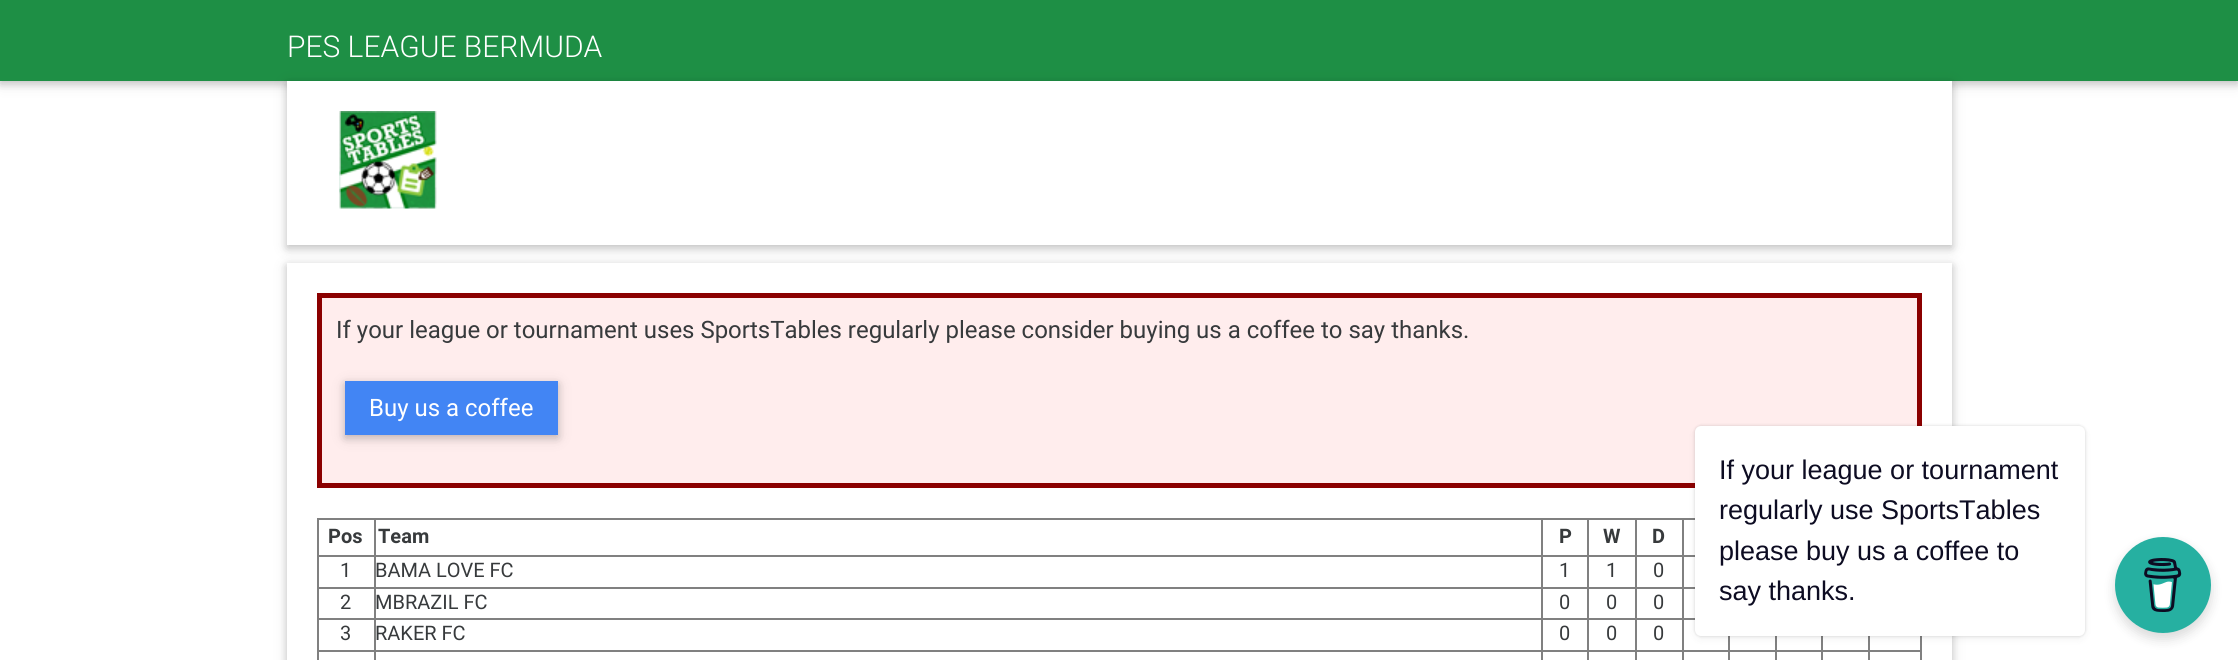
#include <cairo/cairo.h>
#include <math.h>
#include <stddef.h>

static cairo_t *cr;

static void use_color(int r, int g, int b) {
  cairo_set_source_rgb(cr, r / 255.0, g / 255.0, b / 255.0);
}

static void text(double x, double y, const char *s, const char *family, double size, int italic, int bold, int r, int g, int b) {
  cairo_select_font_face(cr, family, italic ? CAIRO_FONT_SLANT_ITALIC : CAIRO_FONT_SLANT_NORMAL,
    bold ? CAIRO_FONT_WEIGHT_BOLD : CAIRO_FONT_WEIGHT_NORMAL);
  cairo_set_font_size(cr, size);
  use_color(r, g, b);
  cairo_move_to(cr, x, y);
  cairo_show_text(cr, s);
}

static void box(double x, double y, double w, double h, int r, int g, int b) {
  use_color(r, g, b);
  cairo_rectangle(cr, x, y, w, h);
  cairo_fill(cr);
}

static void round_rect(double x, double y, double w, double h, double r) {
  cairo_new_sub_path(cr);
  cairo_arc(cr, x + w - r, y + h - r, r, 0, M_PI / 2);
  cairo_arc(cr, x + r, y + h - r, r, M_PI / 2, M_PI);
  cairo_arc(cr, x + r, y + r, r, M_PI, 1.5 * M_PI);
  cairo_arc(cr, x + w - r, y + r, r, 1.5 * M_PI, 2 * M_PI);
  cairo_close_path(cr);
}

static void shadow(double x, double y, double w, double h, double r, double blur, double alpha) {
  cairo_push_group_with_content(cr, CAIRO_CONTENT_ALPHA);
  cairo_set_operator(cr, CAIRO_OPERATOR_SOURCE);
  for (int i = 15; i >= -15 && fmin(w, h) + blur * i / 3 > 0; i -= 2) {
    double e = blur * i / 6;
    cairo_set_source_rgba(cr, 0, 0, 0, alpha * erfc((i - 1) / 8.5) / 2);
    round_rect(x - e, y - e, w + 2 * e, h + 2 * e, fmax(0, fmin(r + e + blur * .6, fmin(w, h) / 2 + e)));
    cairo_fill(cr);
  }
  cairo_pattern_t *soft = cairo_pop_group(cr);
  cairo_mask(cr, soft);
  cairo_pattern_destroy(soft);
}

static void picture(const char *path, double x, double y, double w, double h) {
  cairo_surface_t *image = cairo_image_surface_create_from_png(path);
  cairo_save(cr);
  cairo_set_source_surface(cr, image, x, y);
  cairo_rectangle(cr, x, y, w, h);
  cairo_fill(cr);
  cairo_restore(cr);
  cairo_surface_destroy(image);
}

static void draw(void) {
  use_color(255, 255, 255);
  cairo_paint(cr);
  use_color(0, 0, 0);
  shadow(0, 3, 2238, 81, 0, 7.5, 0.12);
  shadow(0, 3, 2238, 81, 0, 4, 0.16);
  box(0, 0, 2238, 81, 30, 143, 69);
  use_color(0, 0, 0);
  shadow(287, 84, 1665, 164, 0, 7.5, 0.12);
  shadow(287, 84, 1665, 164, 0, 4, 0.16);
  box(287, 81, 1665, 164, 255, 255, 255);
  picture("img_01.png", 339, 111, 98, 98);
  use_color(0, 0, 0);
  shadow(287, 266, 1665, 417, 0, 7.5, 0.12);
  shadow(287, 266, 1665, 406, 0, 4, 0.16);
  box(287, 263, 1665, 397, 255, 255, 255);
  use_color(255, 237, 237);
  cairo_rectangle(cr, 319.5, 295.5, 1600, 190);
  cairo_fill_preserve(cr);
  use_color(139, 0, 0);
  cairo_set_line_width(cr, 5);
  cairo_stroke(cr);
  use_color(0, 0, 0);
  shadow(345, 384, 213, 54, 0, 7.5, 0.12);
  shadow(345, 384, 213, 54, 0, 4, 0.16);
  box(345, 381, 213, 54, 66, 133, 244);
  box(317, 518, 1378, 2, 128, 128, 128);
  box(1920, 636, 2, 24, 128, 128, 128);
  box(317, 518, 2, 142, 128, 128, 128);
  box(1682, 555, 13, 2, 128, 128, 128);
  box(1682, 587, 13, 2, 128, 128, 128);
  box(1682, 618, 13, 2, 128, 128, 128);
  box(1868, 650, 54, 2, 128, 128, 128);
  box(1868, 650, 2, 10, 128, 128, 128);
  box(1821, 650, 48, 2, 128, 128, 128);
  box(1821, 650, 2, 10, 128, 128, 128);
  box(1775, 650, 48, 2, 128, 128, 128);
  box(1775, 650, 2, 10, 128, 128, 128);
  box(1728, 650, 48, 2, 128, 128, 128);
  box(1728, 650, 2, 10, 128, 128, 128);
  box(1682, 650, 48, 2, 128, 128, 128);
  box(1682, 650, 2, 10, 128, 128, 128);
  box(1635, 650, 48, 2, 128, 128, 128);
  box(1682, 618, 2, 33, 128, 128, 128);
  box(1635, 618, 48, 2, 128, 128, 128);
  box(1682, 587, 2, 33, 128, 128, 128);
  box(1635, 587, 48, 2, 128, 128, 128);
  box(1682, 555, 2, 33, 128, 128, 128);
  box(1635, 555, 48, 2, 128, 128, 128);
  box(1635, 650, 2, 10, 128, 128, 128);
  box(1587, 650, 50, 2, 128, 128, 128);
  box(1635, 618, 2, 33, 128, 128, 128);
  box(1587, 618, 50, 2, 128, 128, 128);
  box(1635, 587, 2, 33, 128, 128, 128);
  box(1587, 587, 50, 2, 128, 128, 128);
  box(1635, 555, 2, 33, 128, 128, 128);
  box(1587, 555, 50, 2, 128, 128, 128);
  box(1587, 650, 2, 10, 128, 128, 128);
  box(1541, 650, 48, 2, 128, 128, 128);
  box(1587, 618, 2, 33, 128, 128, 128);
  box(1541, 618, 48, 2, 128, 128, 128);
  box(1587, 587, 2, 33, 128, 128, 128);
  box(1541, 587, 48, 2, 128, 128, 128);
  box(1587, 555, 2, 33, 128, 128, 128);
  box(1541, 555, 48, 2, 128, 128, 128);
  box(1541, 650, 2, 10, 128, 128, 128);
  box(374, 650, 1168, 2, 128, 128, 128);
  box(1541, 618, 2, 33, 128, 128, 128);
  box(374, 618, 1168, 2, 128, 128, 128);
  box(1541, 587, 2, 33, 128, 128, 128);
  box(374, 587, 1168, 2, 128, 128, 128);
  box(1541, 555, 2, 33, 128, 128, 128);
  box(374, 555, 1168, 2, 128, 128, 128);
  box(374, 650, 2, 10, 128, 128, 128);
  box(317, 650, 58, 2, 128, 128, 128);
  box(374, 618, 2, 33, 128, 128, 128);
  box(317, 618, 58, 2, 128, 128, 128);
  box(374, 587, 2, 33, 128, 128, 128);
  box(317, 587, 58, 2, 128, 128, 128);
  box(374, 555, 2, 33, 128, 128, 128);
  box(317, 555, 58, 2, 128, 128, 128);
  box(374, 518, 2, 39, 128, 128, 128);
  box(1541, 518, 2, 39, 128, 128, 128);
  box(1587, 518, 2, 39, 128, 128, 128);
  box(1635, 518, 2, 39, 128, 128, 128);
  box(1682, 518, 2, 39, 128, 128, 128);
  box(1728, 636, 2, 15, 128, 128, 128);
  box(1775, 636, 2, 15, 128, 128, 128);
  box(1821, 636, 2, 15, 128, 128, 128);
  box(1868, 636, 2, 15, 128, 128, 128);
  use_color(0, 0, 0);
  shadow(1695, 426, 390, 210, 6, 1.5, 0.15);
  shadow(1695, 429, 390, 210, 6, 4, 0.05);
  use_color(255, 255, 255);
  round_rect(1695, 426, 390, 210, 6);
  cairo_fill(cr);
  use_color(0, 0, 0);
  shadow(2115, 543, 96, 96, 48, 6, 0.15);
  use_color(38, 176, 161);
  cairo_arc(cr, 2163, 585, 48, 0, 2 * M_PI);
  cairo_fill(cr);
  picture("img_02.png", 2144, 558, 38, 54);
  text(287, 57, "PES LEAGUE BERMUDA", "Roboto Light", 30, 0, 0, 255, 255, 255);
  text(336, 338, "If your league or tournament uses SportsTables regularly please consider buying us a coffee to say thanks.", "Roboto", 24, 0, 0, 55, 58, 60);
  text(369, 416, "Buy us a coffee", "Roboto", 24, 0, 0, 255, 255, 255);
  text(328, 543, "Pos", "Roboto", 20, 0, 1, 55, 58, 60);
  text(378, 543, "Team", "Roboto", 20, 0, 1, 55, 58, 60);
  text(1559, 543, "P", "Roboto", 20, 0, 1, 55, 58, 60);
  text(1603, 543, "W", "Roboto", 20, 0, 1, 55, 58, 60);
  text(1652, 543, "D", "Roboto", 20, 0, 1, 55, 58, 60);
  text(340, 577, "1", "Roboto", 20, 0, 0, 55, 58, 60);
  text(375, 577, "BAMA LOVE FC", "Roboto", 20, 0, 0, 55, 58, 60);
  text(1559, 577, "1", "Roboto", 20, 0, 0, 55, 58, 60);
  text(1606, 577, "1", "Roboto", 20, 0, 0, 55, 58, 60);
  text(1653, 577, "0", "Roboto", 20, 0, 0, 55, 58, 60);
  text(340, 609, "2", "Roboto", 20, 0, 0, 55, 58, 60);
  text(375, 609, "MBRAZIL FC", "Roboto", 20, 0, 0, 55, 58, 60);
  text(1559, 609, "0", "Roboto", 20, 0, 0, 55, 58, 60);
  text(1606, 609, "0", "Roboto", 20, 0, 0, 55, 58, 60);
  text(1653, 609, "0", "Roboto", 20, 0, 0, 55, 58, 60);
  text(340, 640, "3", "Roboto", 20, 0, 0, 55, 58, 60);
  text(375, 640, "RAKER FC", "Roboto", 20, 0, 0, 55, 58, 60);
  text(1559, 640, "0", "Roboto", 20, 0, 0, 55, 58, 60);
  text(1606, 640, "0", "Roboto", 20, 0, 0, 55, 58, 60);
  text(1653, 640, "0", "Roboto", 20, 0, 0, 55, 58, 60);
  text(1719, 479, "If your league or tournament", "Liberation Sans", 27, 0, 0, 13, 12, 34);
  text(1719, 519, "regularly use SportsTables", "Liberation Sans", 27, 0, 0, 13, 12, 34);
  text(1719, 560, "please buy us a coffee to", "Liberation Sans", 27, 0, 0, 13, 12, 34);
  text(1719, 600, "say thanks.", "Liberation Sans", 27, 0, 0, 13, 12, 34);
}

int main(void) {
  cairo_surface_t *surface = cairo_image_surface_create(CAIRO_FORMAT_RGB24, 2238, 660);
  cr = cairo_create(surface);
  cairo_font_options_t *options = cairo_font_options_create();
  cairo_font_options_set_hint_metrics(options, CAIRO_HINT_METRICS_OFF);
  cairo_font_options_set_hint_style(options, CAIRO_HINT_STYLE_NONE);
  cairo_set_font_options(cr, options);
  cairo_set_miter_limit(cr, 4);
  draw();
  cairo_surface_write_to_png(surface, "out.png");
  cairo_font_options_destroy(options);
  cairo_destroy(cr);
  cairo_surface_destroy(surface);
  return 0;
}
